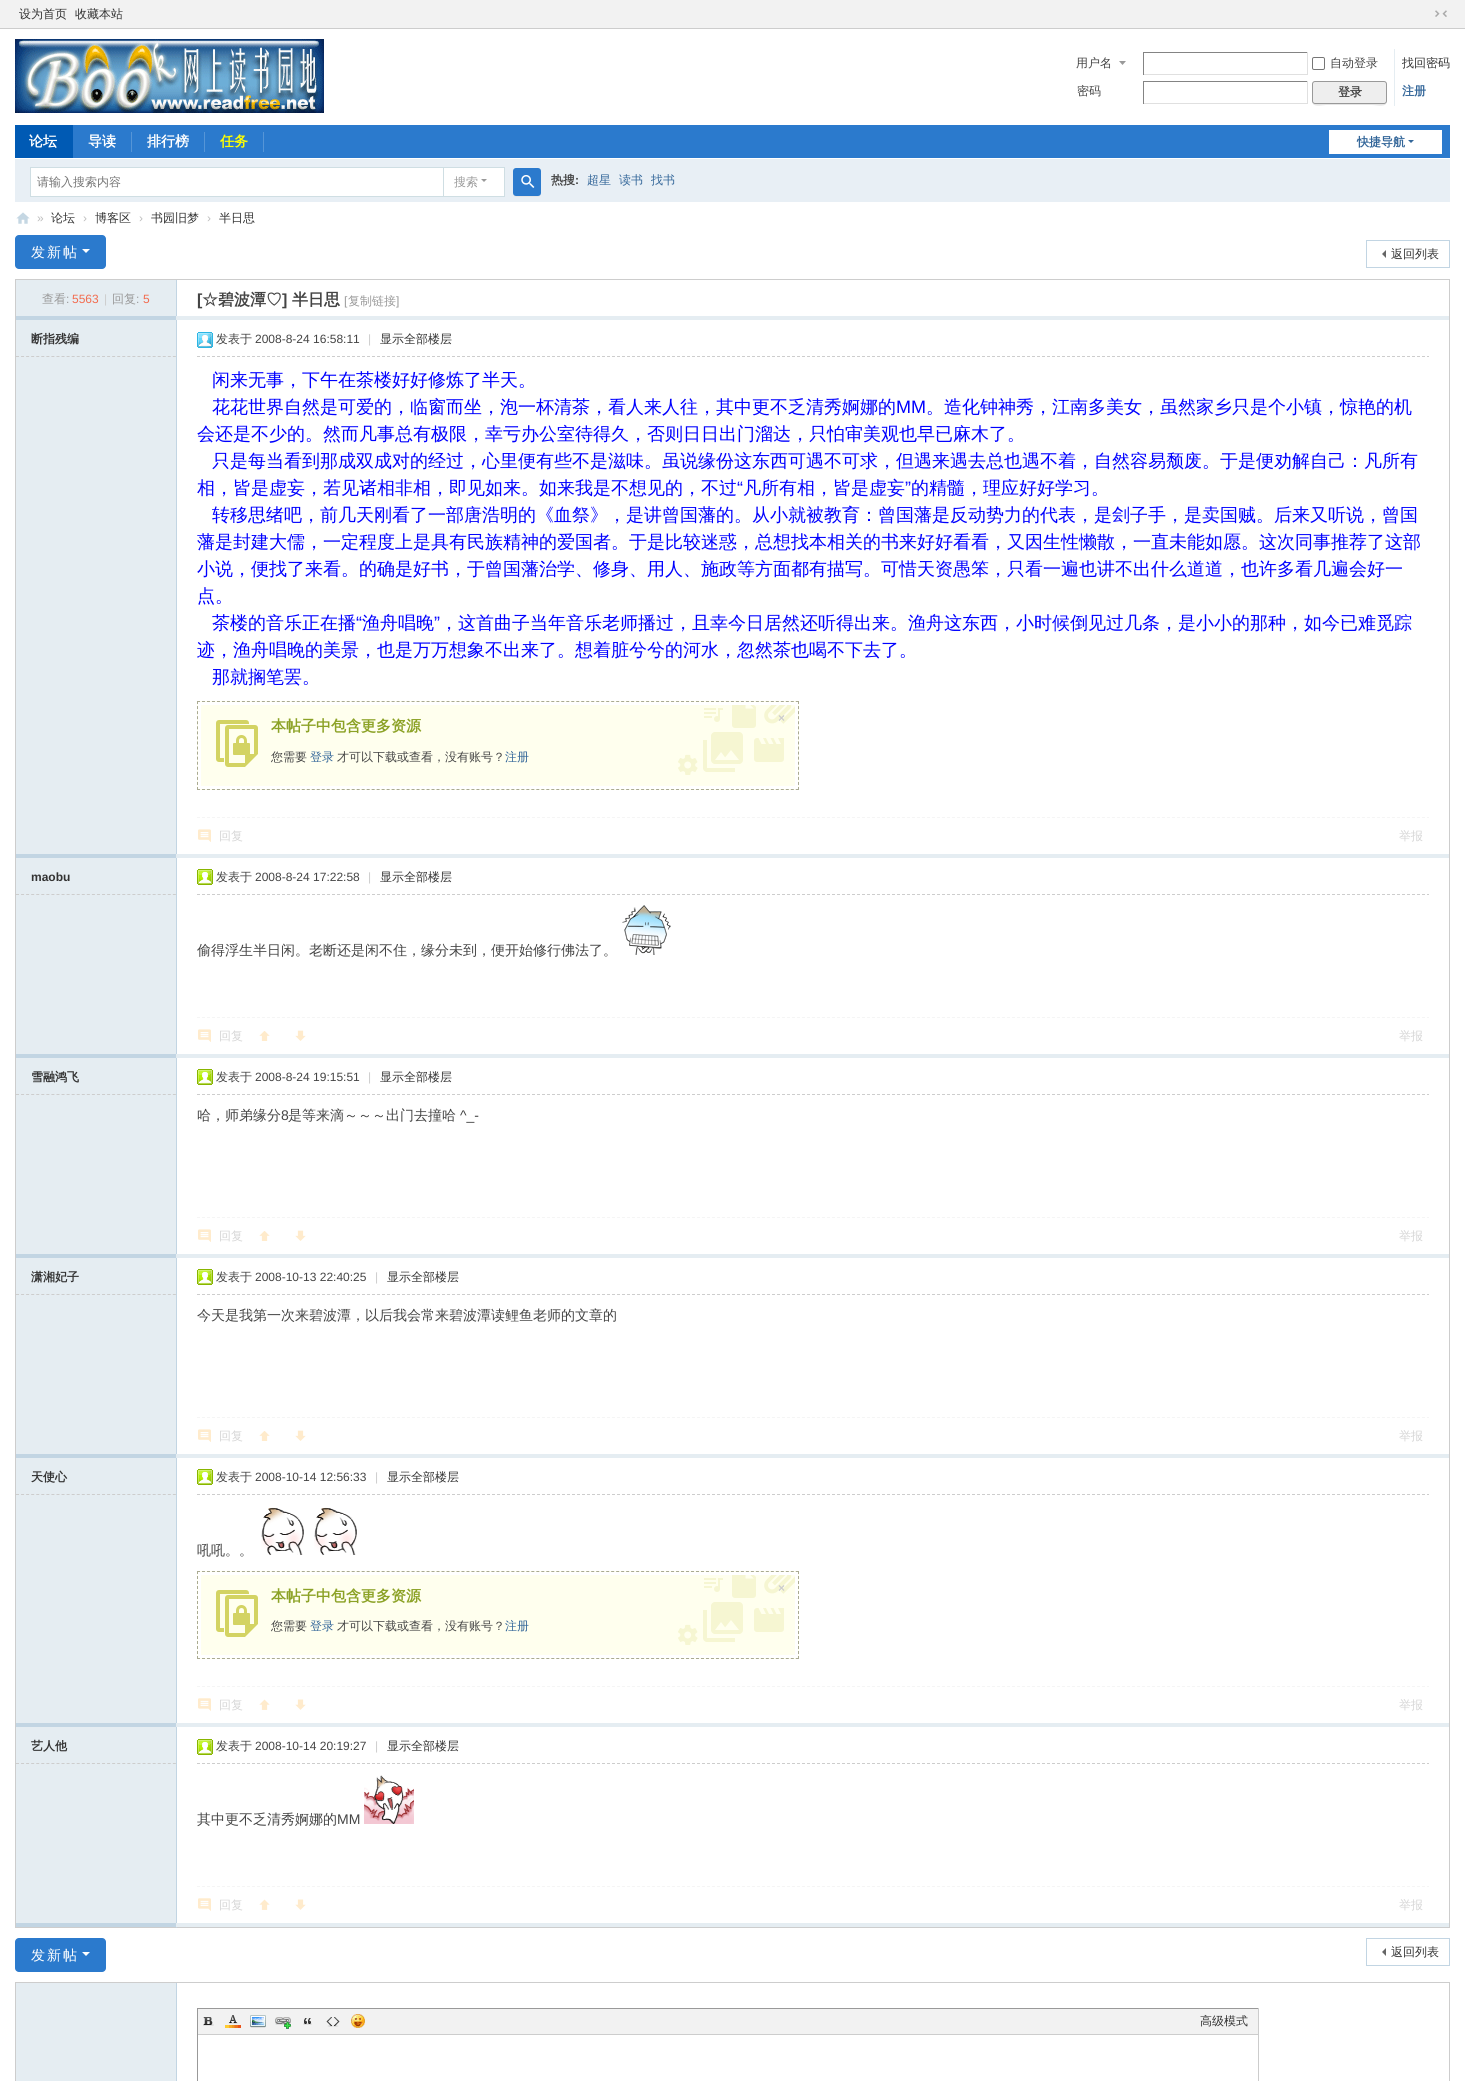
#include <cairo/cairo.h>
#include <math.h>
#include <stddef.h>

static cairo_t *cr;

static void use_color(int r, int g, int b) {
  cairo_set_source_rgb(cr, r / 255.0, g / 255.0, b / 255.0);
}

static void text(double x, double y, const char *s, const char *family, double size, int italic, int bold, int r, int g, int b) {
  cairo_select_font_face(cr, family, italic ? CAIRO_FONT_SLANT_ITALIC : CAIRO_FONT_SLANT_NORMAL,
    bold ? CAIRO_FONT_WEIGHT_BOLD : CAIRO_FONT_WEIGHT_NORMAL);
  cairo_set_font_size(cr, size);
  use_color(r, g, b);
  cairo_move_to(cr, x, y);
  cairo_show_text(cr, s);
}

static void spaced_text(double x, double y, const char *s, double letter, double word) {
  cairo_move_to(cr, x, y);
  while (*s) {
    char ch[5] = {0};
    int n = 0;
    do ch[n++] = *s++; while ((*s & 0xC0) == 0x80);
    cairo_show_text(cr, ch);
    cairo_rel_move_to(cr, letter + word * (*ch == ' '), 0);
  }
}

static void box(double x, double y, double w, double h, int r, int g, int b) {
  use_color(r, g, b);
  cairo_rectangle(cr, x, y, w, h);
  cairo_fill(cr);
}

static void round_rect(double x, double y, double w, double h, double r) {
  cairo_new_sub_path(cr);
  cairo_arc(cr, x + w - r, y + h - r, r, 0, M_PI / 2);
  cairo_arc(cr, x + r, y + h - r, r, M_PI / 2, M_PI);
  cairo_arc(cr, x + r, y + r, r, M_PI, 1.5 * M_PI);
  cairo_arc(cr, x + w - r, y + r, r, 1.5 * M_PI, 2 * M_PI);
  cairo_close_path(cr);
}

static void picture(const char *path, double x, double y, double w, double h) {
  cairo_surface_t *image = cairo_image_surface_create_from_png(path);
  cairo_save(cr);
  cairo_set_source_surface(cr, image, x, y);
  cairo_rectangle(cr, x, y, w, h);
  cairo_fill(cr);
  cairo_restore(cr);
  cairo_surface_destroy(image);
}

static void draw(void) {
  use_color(255, 255, 255);
  cairo_paint(cr);
  box(0, 0, 1465, 28, 242, 242, 242);
  box(0, 28, 1465, 1, 205, 205, 205);
  picture("img_01.png", 1435, 10, 12, 7);
  picture("img_02.png", 15, 39, 309, 74);
  use_color(153, 153, 153);
  cairo_new_path(cr);
  cairo_move_to(cr, 1126, 61);
  cairo_line_to(cr, 1119, 61);
  cairo_line_to(cr, 1122.5, 65);
  cairo_close_path(cr);
  cairo_fill(cr);
  box(1143, 52, 165, 1, 132, 132, 132);
  box(1307, 52, 1, 23, 224, 224, 224);
  box(1143, 74, 165, 1, 224, 224, 224);
  box(1143, 52, 1, 23, 132, 132, 132);
  round_rect(1312.5, 57.5, 12, 12, 1.5);
  use_color(118, 118, 118);
  cairo_set_line_width(cr, 1);
  cairo_stroke(cr);
  box(1143, 81, 165, 1, 132, 132, 132);
  box(1307, 81, 1, 23, 224, 224, 224);
  box(1143, 103, 165, 1, 224, 224, 224);
  box(1143, 81, 1, 23, 132, 132, 132);
  box(1394, 49, 1, 57, 229, 237, 242);
  use_color(229, 229, 229);
  cairo_new_path(cr);
  cairo_move_to(cr, 1312, 101);
  cairo_curve_to(cr, 1312, 108, 1322, 105, 1326, 105);
  cairo_line_to(cr, 1372, 105);
  cairo_curve_to(cr, 1377, 105, 1387, 108, 1387, 101);
  cairo_curve_to(cr, 1387, 103, 1386, 104, 1384, 104);
  cairo_line_to(cr, 1315, 104);
  cairo_curve_to(cr, 1313, 104, 1312, 103, 1312, 101);
  cairo_close_path(cr);
  cairo_fill(cr);
  use_color(238, 238, 238);
  round_rect(1312.5, 81.5, 74, 22, 2.5);
  cairo_fill_preserve(cr);
  use_color(153, 153, 153);
  cairo_stroke(cr);
  box(73, 125, 1377, 33, 43, 122, 205);
  box(15, 125, 58, 33, 0, 90, 180);
  box(131, 132, 1, 20, 85, 149, 215);
  box(204, 132, 1, 20, 85, 149, 215);
  box(263, 132, 1, 20, 85, 149, 215);
  box(1329, 130, 113, 24, 255, 255, 255);
  use_color(51, 102, 153);
  cairo_new_path(cr);
  cairo_move_to(cr, 1408, 140);
  cairo_line_to(cr, 1414, 140);
  cairo_line_to(cr, 1411, 143);
  cairo_close_path(cr);
  cairo_fill(cr);
  box(15, 159, 1435, 43, 232, 239, 245);
  box(442, 167, 63, 1, 207, 222, 227);
  box(504, 167, 1, 30, 207, 222, 227);
  box(442, 196, 63, 1, 207, 222, 227);
  use_color(255, 255, 255);
  cairo_rectangle(cr, 30.5, 167.5, 413, 29);
  cairo_fill_preserve(cr);
  use_color(207, 222, 227);
  cairo_stroke(cr);
  box(444, 168, 60, 28, 255, 255, 255);
  use_color(153, 153, 153);
  cairo_new_path(cr);
  cairo_move_to(cr, 481, 179);
  cairo_line_to(cr, 487, 179);
  cairo_line_to(cr, 484, 182);
  cairo_close_path(cr);
  cairo_fill(cr);
  use_color(229, 229, 229);
  cairo_new_path(cr);
  cairo_move_to(cr, 513, 193);
  cairo_curve_to(cr, 513, 197.5, 516, 197, 519.5, 197);
  cairo_line_to(cr, 534.5, 197);
  cairo_curve_to(cr, 538, 197, 541, 197.5, 541, 193);
  cairo_curve_to(cr, 541, 194.5, 539.5, 196, 538, 196);
  cairo_line_to(cr, 516, 196);
  cairo_curve_to(cr, 514.5, 196, 513, 194.5, 513, 193);
  cairo_close_path(cr);
  cairo_fill(cr);
  use_color(43, 122, 205);
  round_rect(513, 168, 28, 28, 3);
  cairo_fill(cr);
  picture("img_03.png", 521, 175, 14, 13);
  picture("img_04.png", 16, 212, 14, 12);
  round_rect(15, 235, 91, 34, 4);
  cairo_fill(cr);
  use_color(255, 255, 255);
  cairo_new_path(cr);
  cairo_move_to(cr, 82, 249);
  cairo_line_to(cr, 90, 249);
  cairo_line_to(cr, 86, 253);
  cairo_close_path(cr);
  cairo_fill(cr);
  cairo_rectangle(cr, 1366.5, 240.5, 83, 27);
  use_color(194, 213, 227);
  cairo_stroke(cr);
  use_color(102, 102, 102);
  cairo_new_path(cr);
  cairo_move_to(cr, 1386, 250);
  cairo_line_to(cr, 1386, 258);
  cairo_line_to(cr, 1382, 254);
  cairo_close_path(cr);
  cairo_fill(cr);
  cairo_rectangle(cr, 15.5, 279.5, 1434, 1648);
  use_color(205, 205, 205);
  cairo_stroke(cr);
  box(176, 280, 1, 37, 194, 213, 227);
  box(16, 280, 160, 36, 229, 237, 242);
  box(16, 316, 160, 4, 194, 213, 227);
  box(176, 316, 1273, 4, 229, 237, 242);
  box(16, 320, 160, 534, 229, 237, 242);
  cairo_new_path(cr);
  cairo_move_to(cr, 16, 356.5);
  cairo_line_to(cr, 176, 356.5);
  use_color(205, 205, 205);
  cairo_set_dash(cr, (double[]){3, 2.06}, 2, 0);
  cairo_stroke(cr);
  cairo_new_path(cr);
  cairo_move_to(cr, 197, 356.5);
  cairo_line_to(cr, 1429, 356.5);
  cairo_set_dash(cr, (double[]){3, 2}, 2, 0);
  cairo_stroke(cr);
  picture("img_05.png", 197, 332, 16, 16);
  box(197, 701, 602, 89, 255, 255, 238);
  picture("img_06.png", 678, 705, 117, 70);
  cairo_new_path(cr);
  cairo_move_to(cr, 197, 701.5);
  cairo_line_to(cr, 799, 701.5);
  use_color(170, 170, 146);
  cairo_set_dash(cr, (double[]){3, 1.99}, 2, 0);
  cairo_stroke(cr);
  cairo_new_path(cr);
  cairo_move_to(cr, 798.5, 701);
  cairo_line_to(cr, 798.5, 790);
  cairo_set_dash(cr, (double[]){3, 2.06}, 2, 0);
  cairo_stroke(cr);
  cairo_new_path(cr);
  cairo_move_to(cr, 197, 789.5);
  cairo_line_to(cr, 799, 789.5);
  cairo_set_dash(cr, (double[]){3, 1.99}, 2, 0);
  cairo_stroke(cr);
  cairo_new_path(cr);
  cairo_move_to(cr, 197.5, 701);
  cairo_line_to(cr, 197.5, 790);
  cairo_set_dash(cr, (double[]){3, 2.06}, 2, 0);
  cairo_stroke(cr);
  picture("img_07.png", 216, 720, 42, 47);
  cairo_rectangle(cr, 199.5, 703.5, 597, 84);
  use_color(255, 255, 255);
  cairo_set_line_width(cr, 3);
  cairo_set_dash(cr, NULL, 0, 0);
  cairo_stroke(cr);
  box(176, 320, 1, 534, 194, 213, 227);
  cairo_new_path(cr);
  cairo_move_to(cr, 197, 817.5);
  cairo_line_to(cr, 1429, 817.5);
  use_color(245, 245, 245);
  cairo_set_line_width(cr, 1);
  cairo_set_dash(cr, (double[]){3, 2}, 2, 0);
  cairo_stroke(cr);
  picture("img_08.png", 198, 829, 13, 13);
  box(16, 854, 160, 4, 194, 213, 227);
  box(176, 857, 1, 197, 194, 213, 227);
  box(176, 854, 1273, 4, 229, 237, 242);
  box(16, 858, 160, 196, 229, 237, 242);
  cairo_new_path(cr);
  cairo_move_to(cr, 16, 894.5);
  cairo_line_to(cr, 176, 894.5);
  use_color(205, 205, 205);
  cairo_set_dash(cr, (double[]){3, 2.06}, 2, 0);
  cairo_stroke(cr);
  cairo_new_path(cr);
  cairo_move_to(cr, 197, 894.5);
  cairo_line_to(cr, 1429, 894.5);
  cairo_set_dash(cr, (double[]){3, 2}, 2, 0);
  cairo_stroke(cr);
  picture("img_09.png", 197, 869, 16, 16);
  picture("img_10.png", 622, 905, 49, 50);
  cairo_new_path(cr);
  cairo_move_to(cr, 197, 1017.5);
  cairo_line_to(cr, 1429, 1017.5);
  use_color(245, 245, 245);
  cairo_stroke(cr);
  picture("img_08.png", 198, 1029, 13, 13);
  picture("img_11.png", 259, 1031, 11, 10);
  picture("img_12.png", 295, 1030, 11, 11);
  box(16, 1054, 160, 4, 194, 213, 227);
  box(176, 1057, 1, 197, 194, 213, 227);
  box(176, 1054, 1273, 4, 229, 237, 242);
  box(16, 1058, 160, 196, 229, 237, 242);
  cairo_new_path(cr);
  cairo_move_to(cr, 16, 1094.5);
  cairo_line_to(cr, 176, 1094.5);
  use_color(205, 205, 205);
  cairo_set_dash(cr, (double[]){3, 2.06}, 2, 0);
  cairo_stroke(cr);
  cairo_new_path(cr);
  cairo_move_to(cr, 197, 1094.5);
  cairo_line_to(cr, 1429, 1094.5);
  cairo_set_dash(cr, (double[]){3, 2}, 2, 0);
  cairo_stroke(cr);
  picture("img_09.png", 197, 1069, 16, 16);
  cairo_new_path(cr);
  cairo_move_to(cr, 197, 1217.5);
  cairo_line_to(cr, 1429, 1217.5);
  use_color(245, 245, 245);
  cairo_stroke(cr);
  picture("img_08.png", 198, 1229, 13, 13);
  picture("img_11.png", 259, 1231, 11, 10);
  picture("img_12.png", 295, 1230, 11, 11);
  box(16, 1254, 160, 4, 194, 213, 227);
  box(176, 1257, 1, 197, 194, 213, 227);
  box(176, 1254, 1273, 4, 229, 237, 242);
  box(16, 1258, 160, 196, 229, 237, 242);
  cairo_new_path(cr);
  cairo_move_to(cr, 16, 1294.5);
  cairo_line_to(cr, 176, 1294.5);
  use_color(205, 205, 205);
  cairo_set_dash(cr, (double[]){3, 2.06}, 2, 0);
  cairo_stroke(cr);
  cairo_new_path(cr);
  cairo_move_to(cr, 197, 1294.5);
  cairo_line_to(cr, 1429, 1294.5);
  cairo_set_dash(cr, (double[]){3, 2}, 2, 0);
  cairo_stroke(cr);
  picture("img_09.png", 197, 1269, 16, 16);
  cairo_new_path(cr);
  cairo_move_to(cr, 197, 1417.5);
  cairo_line_to(cr, 1429, 1417.5);
  use_color(245, 245, 245);
  cairo_stroke(cr);
  picture("img_08.png", 198, 1429, 13, 13);
  picture("img_11.png", 259, 1431, 11, 10);
  picture("img_12.png", 295, 1430, 11, 11);
  box(16, 1454, 160, 4, 194, 213, 227);
  box(176, 1457, 1, 267, 194, 213, 227);
  box(176, 1454, 1273, 4, 229, 237, 242);
  box(16, 1458, 160, 265, 229, 237, 242);
  cairo_new_path(cr);
  cairo_move_to(cr, 16, 1494.5);
  cairo_line_to(cr, 176, 1494.5);
  use_color(205, 205, 205);
  cairo_set_dash(cr, (double[]){3, 2.06}, 2, 0);
  cairo_stroke(cr);
  cairo_new_path(cr);
  cairo_move_to(cr, 197, 1494.5);
  cairo_line_to(cr, 1429, 1494.5);
  cairo_set_dash(cr, (double[]){3, 2}, 2, 0);
  cairo_stroke(cr);
  picture("img_09.png", 197, 1469, 16, 16);
  picture("img_13.png", 261, 1507, 43, 48);
  picture("img_13.png", 314, 1507, 43, 48);
  box(197, 1571, 602, 88, 255, 255, 238);
  picture("img_06.png", 678, 1575, 117, 70);
  cairo_new_path(cr);
  cairo_move_to(cr, 197, 1571.5);
  cairo_line_to(cr, 799, 1571.5);
  use_color(170, 170, 146);
  cairo_set_dash(cr, (double[]){3, 1.99}, 2, 0);
  cairo_stroke(cr);
  cairo_new_path(cr);
  cairo_move_to(cr, 798.5, 1571);
  cairo_line_to(cr, 798.5, 1659);
  cairo_set_dash(cr, (double[]){3, 2}, 2, 0);
  cairo_stroke(cr);
  cairo_new_path(cr);
  cairo_move_to(cr, 197, 1658.5);
  cairo_line_to(cr, 799, 1658.5);
  cairo_set_dash(cr, (double[]){3, 1.99}, 2, 0);
  cairo_stroke(cr);
  cairo_new_path(cr);
  cairo_move_to(cr, 197.5, 1571);
  cairo_line_to(cr, 197.5, 1659);
  cairo_set_dash(cr, (double[]){3, 2}, 2, 0);
  cairo_stroke(cr);
  picture("img_07.png", 216, 1590, 42, 47);
  cairo_rectangle(cr, 199.5, 1573.5, 597, 83);
  use_color(255, 255, 255);
  cairo_set_line_width(cr, 3);
  cairo_set_dash(cr, NULL, 0, 0);
  cairo_stroke(cr);
  cairo_new_path(cr);
  cairo_move_to(cr, 197, 1686.5);
  cairo_line_to(cr, 1429, 1686.5);
  use_color(245, 245, 245);
  cairo_set_line_width(cr, 1);
  cairo_set_dash(cr, (double[]){3, 2}, 2, 0);
  cairo_stroke(cr);
  picture("img_14.png", 198, 1698, 13, 13);
  picture("img_15.png", 259, 1699, 11, 11);
  picture("img_16.png", 295, 1699, 11, 11);
  box(16, 1723, 160, 4, 194, 213, 227);
  box(176, 1723, 1273, 4, 229, 237, 242);
  box(176, 1727, 1, 201, 194, 213, 227);
  box(16, 1923, 160, 4, 194, 213, 227);
  box(176, 1923, 1273, 4, 229, 237, 242);
  box(16, 1727, 160, 196, 229, 237, 242);
  cairo_new_path(cr);
  cairo_move_to(cr, 16, 1763.5);
  cairo_line_to(cr, 176, 1763.5);
  use_color(205, 205, 205);
  cairo_set_dash(cr, (double[]){3, 2.06}, 2, 0);
  cairo_stroke(cr);
  cairo_new_path(cr);
  cairo_move_to(cr, 197, 1763.5);
  cairo_line_to(cr, 1429, 1763.5);
  cairo_set_dash(cr, (double[]){3, 2}, 2, 0);
  cairo_stroke(cr);
  picture("img_09.png", 197, 1739, 16, 16);
  picture("img_17.png", 364, 1775, 50, 49);
  cairo_new_path(cr);
  cairo_move_to(cr, 197, 1886.5);
  cairo_line_to(cr, 1429, 1886.5);
  use_color(245, 245, 245);
  cairo_stroke(cr);
  picture("img_14.png", 198, 1898, 13, 13);
  picture("img_15.png", 259, 1899, 11, 11);
  picture("img_16.png", 295, 1899, 11, 11);
  use_color(43, 122, 205);
  round_rect(15, 1938, 91, 34, 4);
  cairo_fill(cr);
  use_color(255, 255, 255);
  cairo_new_path(cr);
  cairo_move_to(cr, 82, 1952);
  cairo_line_to(cr, 90, 1952);
  cairo_line_to(cr, 86, 1956);
  cairo_close_path(cr);
  cairo_fill(cr);
  cairo_rectangle(cr, 1366.5, 1938.5, 83, 27);
  use_color(194, 213, 227);
  cairo_set_dash(cr, NULL, 0, 0);
  cairo_stroke(cr);
  use_color(102, 102, 102);
  cairo_new_path(cr);
  cairo_move_to(cr, 1386, 1948);
  cairo_line_to(cr, 1386, 1956);
  cairo_line_to(cr, 1382, 1952);
  cairo_close_path(cr);
  cairo_fill(cr);
  cairo_rectangle(cr, 15.5, 1982.5, 1434, 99);
  use_color(205, 205, 205);
  cairo_stroke(cr);
  box(176, 1983, 1, 98, 194, 213, 227);
  box(16, 1983, 160, 98, 229, 237, 242);
  box(197, 2008, 1062, 1, 153, 153, 153);
  box(1258, 2008, 1, 73, 204, 204, 204);
  box(197, 2008, 1, 73, 153, 153, 153);
  box(198, 2009, 1060, 25, 242, 242, 242);
  box(198, 2034, 1060, 1, 205, 205, 205);
  picture("img_18.png", 203, 2017, 11, 9);
  picture("img_19.png", 225, 2015, 16, 13);
  picture("img_20.png", 250, 2015, 16, 13);
  picture("img_21.png", 275, 2017, 17, 12);
  picture("img_22.png", 303, 2018, 9, 7);
  picture("img_23.png", 326, 2017, 14, 10);
  picture("img_24.png", 350, 2014, 15, 14);
  text(19, 18, "设为首页", "WenQuanYi Zen Hei Medium", 12, 0, 0, 51, 51, 51);
  text(75, 18, "收藏本站", "WenQuanYi Zen Hei Medium", 12, 0, 0, 51, 51, 51);
  text(1076, 67, "用户名", "WenQuanYi Zen Hei Medium", 12, 0, 0, 68, 68, 68);
  text(1330, 67, "自动登录", "WenQuanYi Zen Hei Medium", 12, 0, 0, 68, 68, 68);
  text(1402, 67, "找回密码", "WenQuanYi Zen Hei Medium", 12, 0, 0, 51, 51, 51);
  text(1077, 95, "密码", "WenQuanYi Zen Hei Medium", 12, 0, 0, 68, 68, 68);
  text(1338, 96, "登录", "WenQuanYi Zen Hei", 12, 0, 1, 68, 68, 68);
  text(1402, 95, "注册", "WenQuanYi Zen Hei", 12, 0, 1, 51, 102, 153);
  text(29, 146, "论坛", "WenQuanYi Zen Hei", 14, 0, 1, 255, 255, 255);
  text(88, 146, "导读", "WenQuanYi Zen Hei", 14, 0, 1, 255, 255, 255);
  text(147, 146, "排行榜", "WenQuanYi Zen Hei", 14, 0, 1, 255, 255, 255);
  text(220, 146, "任务", "WenQuanYi Zen Hei", 14, 0, 1, 255, 255, 0);
  text(1357, 146, "快捷导航", "WenQuanYi Zen Hei", 12, 0, 1, 51, 102, 153);
  text(37, 186, "请输入搜索内容", "WenQuanYi Zen Hei Medium", 12, 0, 0, 117, 117, 117);
  text(454, 186, "搜索", "WenQuanYi Zen Hei Medium", 12, 0, 0, 153, 153, 153);
  text(551, 184, "热搜", "WenQuanYi Zen Hei", 12, 0, 1, 68, 68, 68);
  text(575, 184, ":", "Liberation Sans", 12, 0, 1, 68, 68, 68);
  text(587, 184, "超星", "WenQuanYi Zen Hei Medium", 12, 0, 0, 51, 102, 153);
  text(619, 184, "读书", "WenQuanYi Zen Hei Medium", 12, 0, 0, 51, 102, 153);
  text(651, 184, "找书", "WenQuanYi Zen Hei Medium", 12, 0, 0, 51, 102, 153);
  text(37, 222, "»", "Liberation Sans", 12, 0, 0, 189, 189, 189);
  text(51, 222, "论坛", "WenQuanYi Zen Hei Medium", 12, 0, 0, 51, 51, 51);
  text(83, 222, "›", "Liberation Sans", 12, 0, 0, 189, 189, 189);
  text(95, 222, "博客区", "WenQuanYi Zen Hei Medium", 12, 0, 0, 51, 51, 51);
  text(139, 222, "›", "Liberation Sans", 12, 0, 0, 189, 189, 189);
  text(151, 222, "书园旧梦", "WenQuanYi Zen Hei Medium", 12, 0, 0, 51, 51, 51);
  text(207, 222, "›", "Liberation Sans", 12, 0, 0, 189, 189, 189);
  text(219, 222, "半日思", "WenQuanYi Zen Hei Medium", 12, 0, 0, 51, 51, 51);
  cairo_set_font_size(cr, 14);
  use_color(255, 255, 255);
  spaced_text(31, 257, "发新帖", 2, 0);
  text(1391, 258, "返回列表", "WenQuanYi Zen Hei Medium", 12, 0, 0, 51, 51, 51);
  text(42, 303, "查看", "WenQuanYi Zen Hei Medium", 12, 0, 0, 153, 153, 153);
  text(66, 303, ":", "Liberation Sans", 12, 0, 0, 153, 153, 153);
  text(72, 303, "5563", "Liberation Sans", 12, 0, 0, 242, 108, 79);
  text(104, 303, "|", "Liberation Sans", 12, 0, 0, 204, 204, 204);
  text(112, 303, "回复", "WenQuanYi Zen Hei Medium", 12, 0, 0, 153, 153, 153);
  text(136, 303, ":", "Liberation Sans", 12, 0, 0, 153, 153, 153);
  text(143, 303, "5", "Liberation Sans", 12, 0, 0, 242, 108, 79);
  text(197, 305, "[", "Liberation Sans", 16, 0, 1, 68, 68, 68);
  text(202, 305, "☆碧波潭♡", "WenQuanYi Zen Hei", 16, 0, 1, 68, 68, 68);
  text(282, 305, "]", "Liberation Sans", 16, 0, 1, 68, 68, 68);
  text(292, 305, "半日思", "WenQuanYi Zen Hei", 16, 0, 1, 68, 68, 68);
  text(344, 305, "[", "Liberation Sans", 12, 0, 0, 153, 153, 153);
  text(348, 305, "复制链接", "WenQuanYi Zen Hei Medium", 12, 0, 0, 153, 153, 153);
  text(396, 305, "]", "Liberation Sans", 12, 0, 0, 153, 153, 153);
  text(31, 343, "断指残编", "WenQuanYi Zen Hei", 12, 0, 1, 51, 51, 51);
  text(216, 343, "发表于", "WenQuanYi Zen Hei Medium", 12, 0, 0, 68, 68, 68);
  text(255, 343, "2008-8-24 16:58:11", "Liberation Sans", 12, 0, 0, 68, 68, 68);
  text(368, 343, "|", "Liberation Sans", 12, 0, 0, 204, 204, 204);
  text(380, 343, "显示全部楼层", "WenQuanYi Zen Hei Medium", 12, 0, 0, 51, 51, 51);
  text(212, 386, "闲来无事，下午在茶楼好好修炼了半天。", "WenQuanYi Zen Hei Medium", 18, 0, 0, 0, 0, 255);
  text(212, 413, "花花世界自然是可爱的，临窗而坐，泡一杯清茶，看人来人往，其中更不乏清秀婀娜的", "WenQuanYi Zen Hei Medium", 18, 0, 0, 0, 0, 255);
  text(896, 413, "MM", "Liberation Sans", 18, 0, 0, 0, 0, 255);
  text(926, 413, "。造化钟神秀，江南多美女，虽然家乡只是个小镇，惊艳的机", "WenQuanYi Zen Hei Medium", 18, 0, 0, 0, 0, 255);
  text(197, 440, "会还是不少的。然而凡事总有极限，幸亏办公室待得久，否则日日出门溜达，只怕审美观也早已麻木了。", "WenQuanYi Zen Hei Medium", 18, 0, 0, 0, 0, 255);
  text(212, 467, "只是每当看到那成双成对的经过，心里便有些不是滋味。虽说缘份这东西可遇不可求，但遇来遇去总也遇不着，自然容易颓废。于是便劝解自己：凡所有", "WenQuanYi Zen Hei Medium", 18, 0, 0, 0, 0, 255);
  text(197, 494, "相，皆是虚妄，若见诸相非相，即见如来。如来我是不想见的，不过", "WenQuanYi Zen Hei Medium", 18, 0, 0, 0, 0, 255);
  text(737, 494, "“", "Liberation Sans", 18, 0, 0, 0, 0, 255);
  text(743, 494, "凡所有相，皆是虚妄", "WenQuanYi Zen Hei Medium", 18, 0, 0, 0, 0, 255);
  text(905, 494, "”", "Liberation Sans", 18, 0, 0, 0, 0, 255);
  text(911, 494, "的精髓，理应好好学习。", "WenQuanYi Zen Hei Medium", 18, 0, 0, 0, 0, 255);
  text(212, 521, "转移思绪吧，前几天刚看了一部唐浩明的《血祭》，是讲曾国藩的。从小就被教育：曾国藩是反动势力的代表，是刽子手，是卖国贼。后来又听说，曾国", "WenQuanYi Zen Hei Medium", 18, 0, 0, 0, 0, 255);
  text(197, 548, "藩是封建大儒，一定程度上是具有民族精神的爱国者。于是比较迷惑，总想找本相关的书来好好看看，又因生性懒散，一直未能如愿。这次同事推荐了这部", "WenQuanYi Zen Hei Medium", 18, 0, 0, 0, 0, 255);
  text(197, 575, "小说，便找了来看。的确是好书，于曾国藩治学、修身、用人、施政等方面都有描写。可惜天资愚笨，只看一遍也讲不出什么道道，也许多看几遍会好一", "WenQuanYi Zen Hei Medium", 18, 0, 0, 0, 0, 255);
  text(197, 602, "点。", "WenQuanYi Zen Hei Medium", 18, 0, 0, 0, 0, 255);
  text(212, 629, "茶楼的音乐正在播", "WenQuanYi Zen Hei Medium", 18, 0, 0, 0, 0, 255);
  text(356, 629, "“", "Liberation Sans", 18, 0, 0, 0, 0, 255);
  text(362, 629, "渔舟唱晚", "WenQuanYi Zen Hei Medium", 18, 0, 0, 0, 0, 255);
  text(434, 629, "”", "Liberation Sans", 18, 0, 0, 0, 0, 255);
  text(440, 629, "，这首曲子当年音乐老师播过，且幸今日居然还听得出来。渔舟这东西，小时候倒见过几条，是小小的那种，如今已难觅踪", "WenQuanYi Zen Hei Medium", 18, 0, 0, 0, 0, 255);
  text(197, 656, "迹，渔舟唱晚的美景，也是万万想象不出来了。想着脏兮兮的河水，忽然茶也喝不下去了。", "WenQuanYi Zen Hei Medium", 18, 0, 0, 0, 0, 255);
  text(212, 683, "那就搁笔罢。", "WenQuanYi Zen Hei Medium", 18, 0, 0, 0, 0, 255);
  text(271, 731, "本帖子中包含更多资源", "WenQuanYi Zen Hei", 15, 0, 1, 140, 162, 38);
  text(271, 761, "您需要", "WenQuanYi Zen Hei Medium", 12, 0, 0, 68, 68, 68);
  text(310, 761, "登录", "WenQuanYi Zen Hei Medium", 12, 0, 0, 51, 102, 153);
  text(337, 761, "才可以下载或查看，没有账号？", "WenQuanYi Zen Hei Medium", 12, 0, 0, 68, 68, 68);
  text(505, 761, "注册", "WenQuanYi Zen Hei Medium", 12, 0, 0, 51, 102, 153);
  text(778, 722, "×", "Liberation Sans", 12, 0, 1, 204, 204, 204);
  text(219, 840, "回复", "WenQuanYi Zen Hei Medium", 12, 0, 0, 214, 214, 214);
  text(1399, 840, "举报", "WenQuanYi Zen Hei Medium", 12, 0, 0, 214, 214, 214);
  text(31, 881, "maobu", "Liberation Sans", 12, 0, 1, 51, 51, 51);
  text(216, 881, "发表于", "WenQuanYi Zen Hei Medium", 12, 0, 0, 68, 68, 68);
  text(255, 881, "2008-8-24 17:22:58", "Liberation Sans", 12, 0, 0, 68, 68, 68);
  text(368, 881, "|", "Liberation Sans", 12, 0, 0, 204, 204, 204);
  text(380, 881, "显示全部楼层", "WenQuanYi Zen Hei Medium", 12, 0, 0, 51, 51, 51);
  text(197, 955, "偷得浮生半日闲。老断还是闲不住，缘分未到，便开始修行佛法了。", "WenQuanYi Zen Hei Medium", 14, 0, 0, 68, 68, 68);
  text(219, 1040, "回复", "WenQuanYi Zen Hei Medium", 12, 0, 0, 214, 214, 214);
  text(1399, 1040, "举报", "WenQuanYi Zen Hei Medium", 12, 0, 0, 214, 214, 214);
  text(31, 1081, "雪融鸿飞", "WenQuanYi Zen Hei", 12, 0, 1, 51, 51, 51);
  text(216, 1081, "发表于", "WenQuanYi Zen Hei Medium", 12, 0, 0, 68, 68, 68);
  text(255, 1081, "2008-8-24 19:15:51", "Liberation Sans", 12, 0, 0, 68, 68, 68);
  text(368, 1081, "|", "Liberation Sans", 12, 0, 0, 204, 204, 204);
  text(380, 1081, "显示全部楼层", "WenQuanYi Zen Hei Medium", 12, 0, 0, 51, 51, 51);
  text(197, 1120, "哈，师弟缘分", "WenQuanYi Zen Hei Medium", 14, 0, 0, 68, 68, 68);
  text(281, 1120, "8", "Liberation Sans", 14, 0, 0, 68, 68, 68);
  text(288, 1120, "是等来滴～～～出门去撞哈", "WenQuanYi Zen Hei Medium", 14, 0, 0, 68, 68, 68);
  text(460, 1120, "^_-", "Liberation Sans", 14, 0, 0, 68, 68, 68);
  text(219, 1240, "回复", "WenQuanYi Zen Hei Medium", 12, 0, 0, 214, 214, 214);
  text(1399, 1240, "举报", "WenQuanYi Zen Hei Medium", 12, 0, 0, 214, 214, 214);
  text(31, 1281, "潇湘妃子", "WenQuanYi Zen Hei", 12, 0, 1, 51, 51, 51);
  text(216, 1281, "发表于", "WenQuanYi Zen Hei Medium", 12, 0, 0, 68, 68, 68);
  text(255, 1281, "2008-10-13 22:40:25", "Liberation Sans", 12, 0, 0, 68, 68, 68);
  text(375, 1281, "|", "Liberation Sans", 12, 0, 0, 204, 204, 204);
  text(387, 1281, "显示全部楼层", "WenQuanYi Zen Hei Medium", 12, 0, 0, 51, 51, 51);
  text(197, 1320, "今天是我第一次来碧波潭，以后我会常来碧波潭读鲤鱼老师的文章的", "WenQuanYi Zen Hei Medium", 14, 0, 0, 68, 68, 68);
  text(219, 1440, "回复", "WenQuanYi Zen Hei Medium", 12, 0, 0, 214, 214, 214);
  text(1399, 1440, "举报", "WenQuanYi Zen Hei Medium", 12, 0, 0, 214, 214, 214);
  text(31, 1481, "天使心", "WenQuanYi Zen Hei", 12, 0, 1, 51, 51, 51);
  text(216, 1481, "发表于", "WenQuanYi Zen Hei Medium", 12, 0, 0, 68, 68, 68);
  text(255, 1481, "2008-10-14 12:56:33", "Liberation Sans", 12, 0, 0, 68, 68, 68);
  text(375, 1481, "|", "Liberation Sans", 12, 0, 0, 204, 204, 204);
  text(387, 1481, "显示全部楼层", "WenQuanYi Zen Hei Medium", 12, 0, 0, 51, 51, 51);
  text(197, 1555, "吼吼。。", "WenQuanYi Zen Hei Medium", 14, 0, 0, 68, 68, 68);
  text(271, 1601, "本帖子中包含更多资源", "WenQuanYi Zen Hei", 15, 0, 1, 140, 162, 38);
  text(271, 1630, "您需要", "WenQuanYi Zen Hei Medium", 12, 0, 0, 68, 68, 68);
  text(310, 1630, "登录", "WenQuanYi Zen Hei Medium", 12, 0, 0, 51, 102, 153);
  text(337, 1630, "才可以下载或查看，没有账号？", "WenQuanYi Zen Hei Medium", 12, 0, 0, 68, 68, 68);
  text(505, 1630, "注册", "WenQuanYi Zen Hei Medium", 12, 0, 0, 51, 102, 153);
  text(778, 1592, "×", "Liberation Sans", 12, 0, 1, 204, 204, 204);
  text(219, 1709, "回复", "WenQuanYi Zen Hei Medium", 12, 0, 0, 214, 214, 214);
  text(1399, 1709, "举报", "WenQuanYi Zen Hei Medium", 12, 0, 0, 214, 214, 214);
  text(31, 1750, "艺人他", "WenQuanYi Zen Hei", 12, 0, 1, 51, 51, 51);
  text(216, 1750, "发表于", "WenQuanYi Zen Hei Medium", 12, 0, 0, 68, 68, 68);
  text(255, 1750, "2008-10-14 20:19:27", "Liberation Sans", 12, 0, 0, 68, 68, 68);
  text(375, 1750, "|", "Liberation Sans", 12, 0, 0, 204, 204, 204);
  text(387, 1750, "显示全部楼层", "WenQuanYi Zen Hei Medium", 12, 0, 0, 51, 51, 51);
  text(197, 1824, "其中更不乏清秀婀娜的", "WenQuanYi Zen Hei Medium", 14, 0, 0, 68, 68, 68);
  text(337, 1824, "MM", "Liberation Sans", 14, 0, 0, 68, 68, 68);
  text(219, 1909, "回复", "WenQuanYi Zen Hei Medium", 12, 0, 0, 214, 214, 214);
  text(1399, 1909, "举报", "WenQuanYi Zen Hei Medium", 12, 0, 0, 214, 214, 214);
  cairo_set_font_size(cr, 14);
  use_color(255, 255, 255);
  spaced_text(31, 1960, "发新帖", 2, 0);
  text(1391, 1956, "返回列表", "WenQuanYi Zen Hei Medium", 12, 0, 0, 51, 51, 51);
  text(1200, 2025, "高级模式", "WenQuanYi Zen Hei Medium", 12, 0, 0, 51, 51, 51);
}

int main(void) {
  cairo_surface_t *surface = cairo_image_surface_create(CAIRO_FORMAT_RGB24, 1465, 2081);
  cr = cairo_create(surface);
  cairo_font_options_t *options = cairo_font_options_create();
  cairo_font_options_set_hint_metrics(options, CAIRO_HINT_METRICS_OFF);
  cairo_font_options_set_hint_style(options, CAIRO_HINT_STYLE_NONE);
  cairo_set_font_options(cr, options);
  cairo_set_miter_limit(cr, 4);
  draw();
  cairo_surface_write_to_png(surface, "out.png");
  cairo_font_options_destroy(options);
  cairo_destroy(cr);
  cairo_surface_destroy(surface);
  return 0;
}
